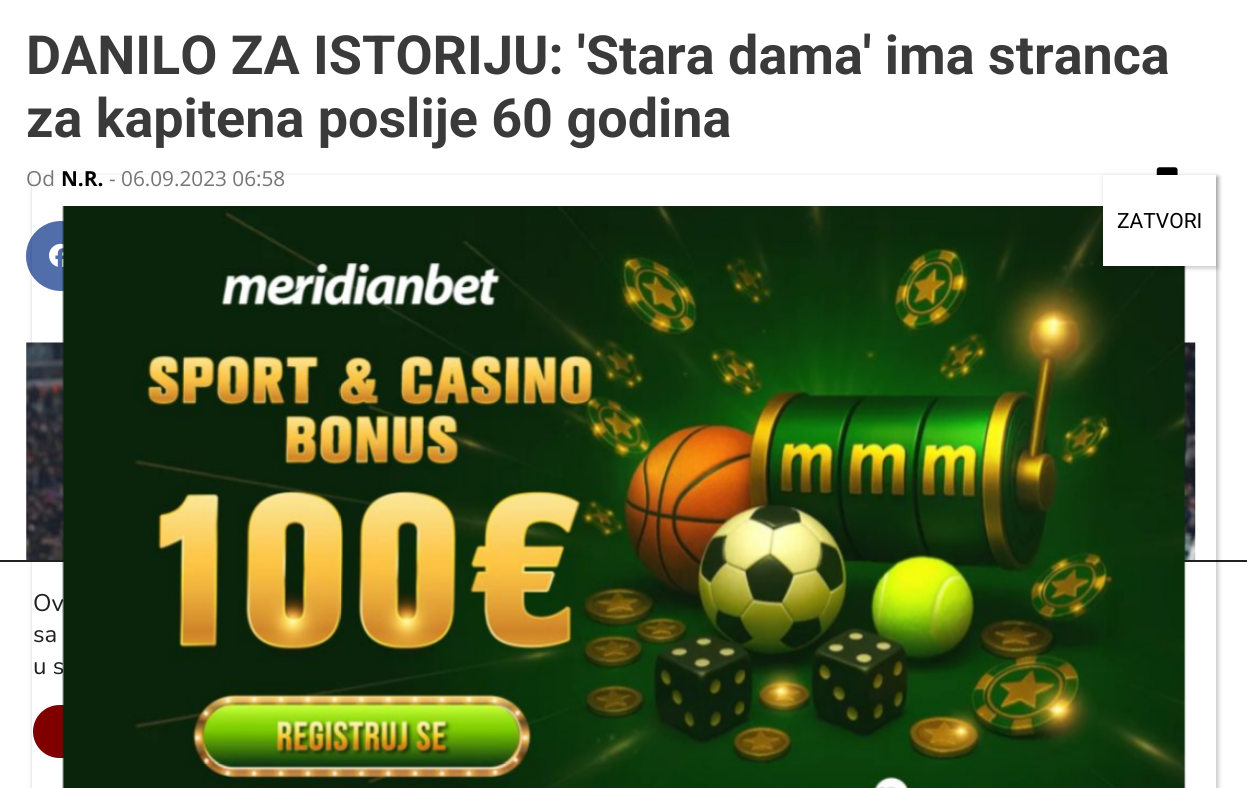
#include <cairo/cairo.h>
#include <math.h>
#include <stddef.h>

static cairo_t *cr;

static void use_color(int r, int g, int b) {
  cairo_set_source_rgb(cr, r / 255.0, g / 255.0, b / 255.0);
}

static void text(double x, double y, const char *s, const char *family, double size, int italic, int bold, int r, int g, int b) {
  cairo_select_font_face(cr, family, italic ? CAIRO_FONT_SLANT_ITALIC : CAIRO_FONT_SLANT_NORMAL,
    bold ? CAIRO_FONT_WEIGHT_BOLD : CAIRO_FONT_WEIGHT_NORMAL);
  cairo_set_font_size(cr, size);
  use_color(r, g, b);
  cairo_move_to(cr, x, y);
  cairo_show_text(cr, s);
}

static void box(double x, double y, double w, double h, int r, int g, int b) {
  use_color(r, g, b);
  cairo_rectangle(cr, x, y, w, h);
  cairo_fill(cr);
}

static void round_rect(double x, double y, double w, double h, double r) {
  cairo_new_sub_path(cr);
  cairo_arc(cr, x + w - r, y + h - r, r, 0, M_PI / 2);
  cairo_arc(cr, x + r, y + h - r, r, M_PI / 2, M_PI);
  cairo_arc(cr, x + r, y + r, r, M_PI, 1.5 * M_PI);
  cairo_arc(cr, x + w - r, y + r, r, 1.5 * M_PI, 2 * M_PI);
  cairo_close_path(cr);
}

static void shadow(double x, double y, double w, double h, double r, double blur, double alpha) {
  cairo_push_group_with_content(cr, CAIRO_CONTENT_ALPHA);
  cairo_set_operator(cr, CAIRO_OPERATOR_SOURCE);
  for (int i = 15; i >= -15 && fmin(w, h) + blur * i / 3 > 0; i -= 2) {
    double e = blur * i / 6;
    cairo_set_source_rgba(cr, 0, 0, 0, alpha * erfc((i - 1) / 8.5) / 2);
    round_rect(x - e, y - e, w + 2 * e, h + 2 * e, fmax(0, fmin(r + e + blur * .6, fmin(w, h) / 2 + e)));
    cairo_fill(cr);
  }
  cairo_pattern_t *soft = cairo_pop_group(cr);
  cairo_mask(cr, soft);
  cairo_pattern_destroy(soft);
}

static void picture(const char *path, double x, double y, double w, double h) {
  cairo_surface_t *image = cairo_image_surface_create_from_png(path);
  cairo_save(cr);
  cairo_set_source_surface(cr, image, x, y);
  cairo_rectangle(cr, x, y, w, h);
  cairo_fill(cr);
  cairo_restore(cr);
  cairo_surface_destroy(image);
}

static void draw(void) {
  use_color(255, 255, 255);
  cairo_paint(cr);
  picture("img_01.png", 1156, 167, 22, 8);
  use_color(81, 110, 171);
  cairo_arc(cr, 61, 256, 35, 0, 2 * M_PI);
  cairo_fill(cr);
  picture("img_02.png", 49, 243, 15, 24);
  picture("img_03.png", 26, 342, 1170, 218);
  box(0, 560, 1247, 2, 32, 32, 32);
  use_color(128, 0, 0);
  round_rect(33, 705, 167, 53, 26.5);
  cairo_fill(cr);
  cairo_save(cr);
  cairo_set_fill_rule(cr, CAIRO_FILL_RULE_EVEN_ODD);
  cairo_new_path(cr);
  cairo_move_to(cr, 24, 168);
  cairo_line_to(cr, 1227, 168);
  cairo_line_to(cr, 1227, 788);
  cairo_line_to(cr, 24, 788);
  cairo_close_path(cr);
  cairo_move_to(cr, 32, 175);
  cairo_line_to(cr, 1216, 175);
  cairo_line_to(cr, 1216, 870);
  cairo_line_to(cr, 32, 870);
  cairo_close_path(cr);
  cairo_clip(cr);
  use_color(2, 2, 2);
  shadow(33, 177, 1185, 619, 0, 2.5, 0.25);
  cairo_restore(cr);
  text(26, 74, "DANILO ZA ISTORIJU: 'Stara dama' ima stranca", "Roboto", 53.9, 0, 1, 58, 58, 58);
  text(26, 137, "za kapitena poslije 60 godina", "Roboto", 53.9, 0, 1, 58, 58, 58);
  text(26, 186, "Od", "Open Sans", 20.75, 0, 0, 118, 118, 118);
  text(61, 186, "N.R.", "Open Sans", 20.75, 0, 1, 0, 0, 0);
  text(109, 186, "- 06.09.2023 06:58", "Open Sans", 20.75, 0, 0, 118, 118, 118);
  text(33, 611, "Ov", "Nunito", 24, 0, 0, 32, 32, 32);
  text(33, 642, "sa", "Nunito", 24, 0, 0, 32, 32, 32);
  text(33, 674, "u s", "Nunito", 24, 0, 0, 32, 32, 32);
  picture("img_04.png", 62, 206, 1124, 582);
  use_color(2, 2, 2);
  shadow(1104, 177, 114, 91, 0, 2.5, 0.23);
  box(1103, 175, 113, 91, 255, 255, 255);
  text(1117, 228, "ZATVORI", "Roboto", 21, 0, 0, 0, 0, 0);
}

int main(void) {
  cairo_surface_t *surface = cairo_image_surface_create(CAIRO_FORMAT_RGB24, 1247, 788);
  cr = cairo_create(surface);
  cairo_font_options_t *options = cairo_font_options_create();
  cairo_font_options_set_hint_metrics(options, CAIRO_HINT_METRICS_OFF);
  cairo_font_options_set_hint_style(options, CAIRO_HINT_STYLE_NONE);
  cairo_set_font_options(cr, options);
  cairo_set_miter_limit(cr, 4);
  draw();
  cairo_surface_write_to_png(surface, "out.png");
  cairo_font_options_destroy(options);
  cairo_destroy(cr);
  cairo_surface_destroy(surface);
  return 0;
}
